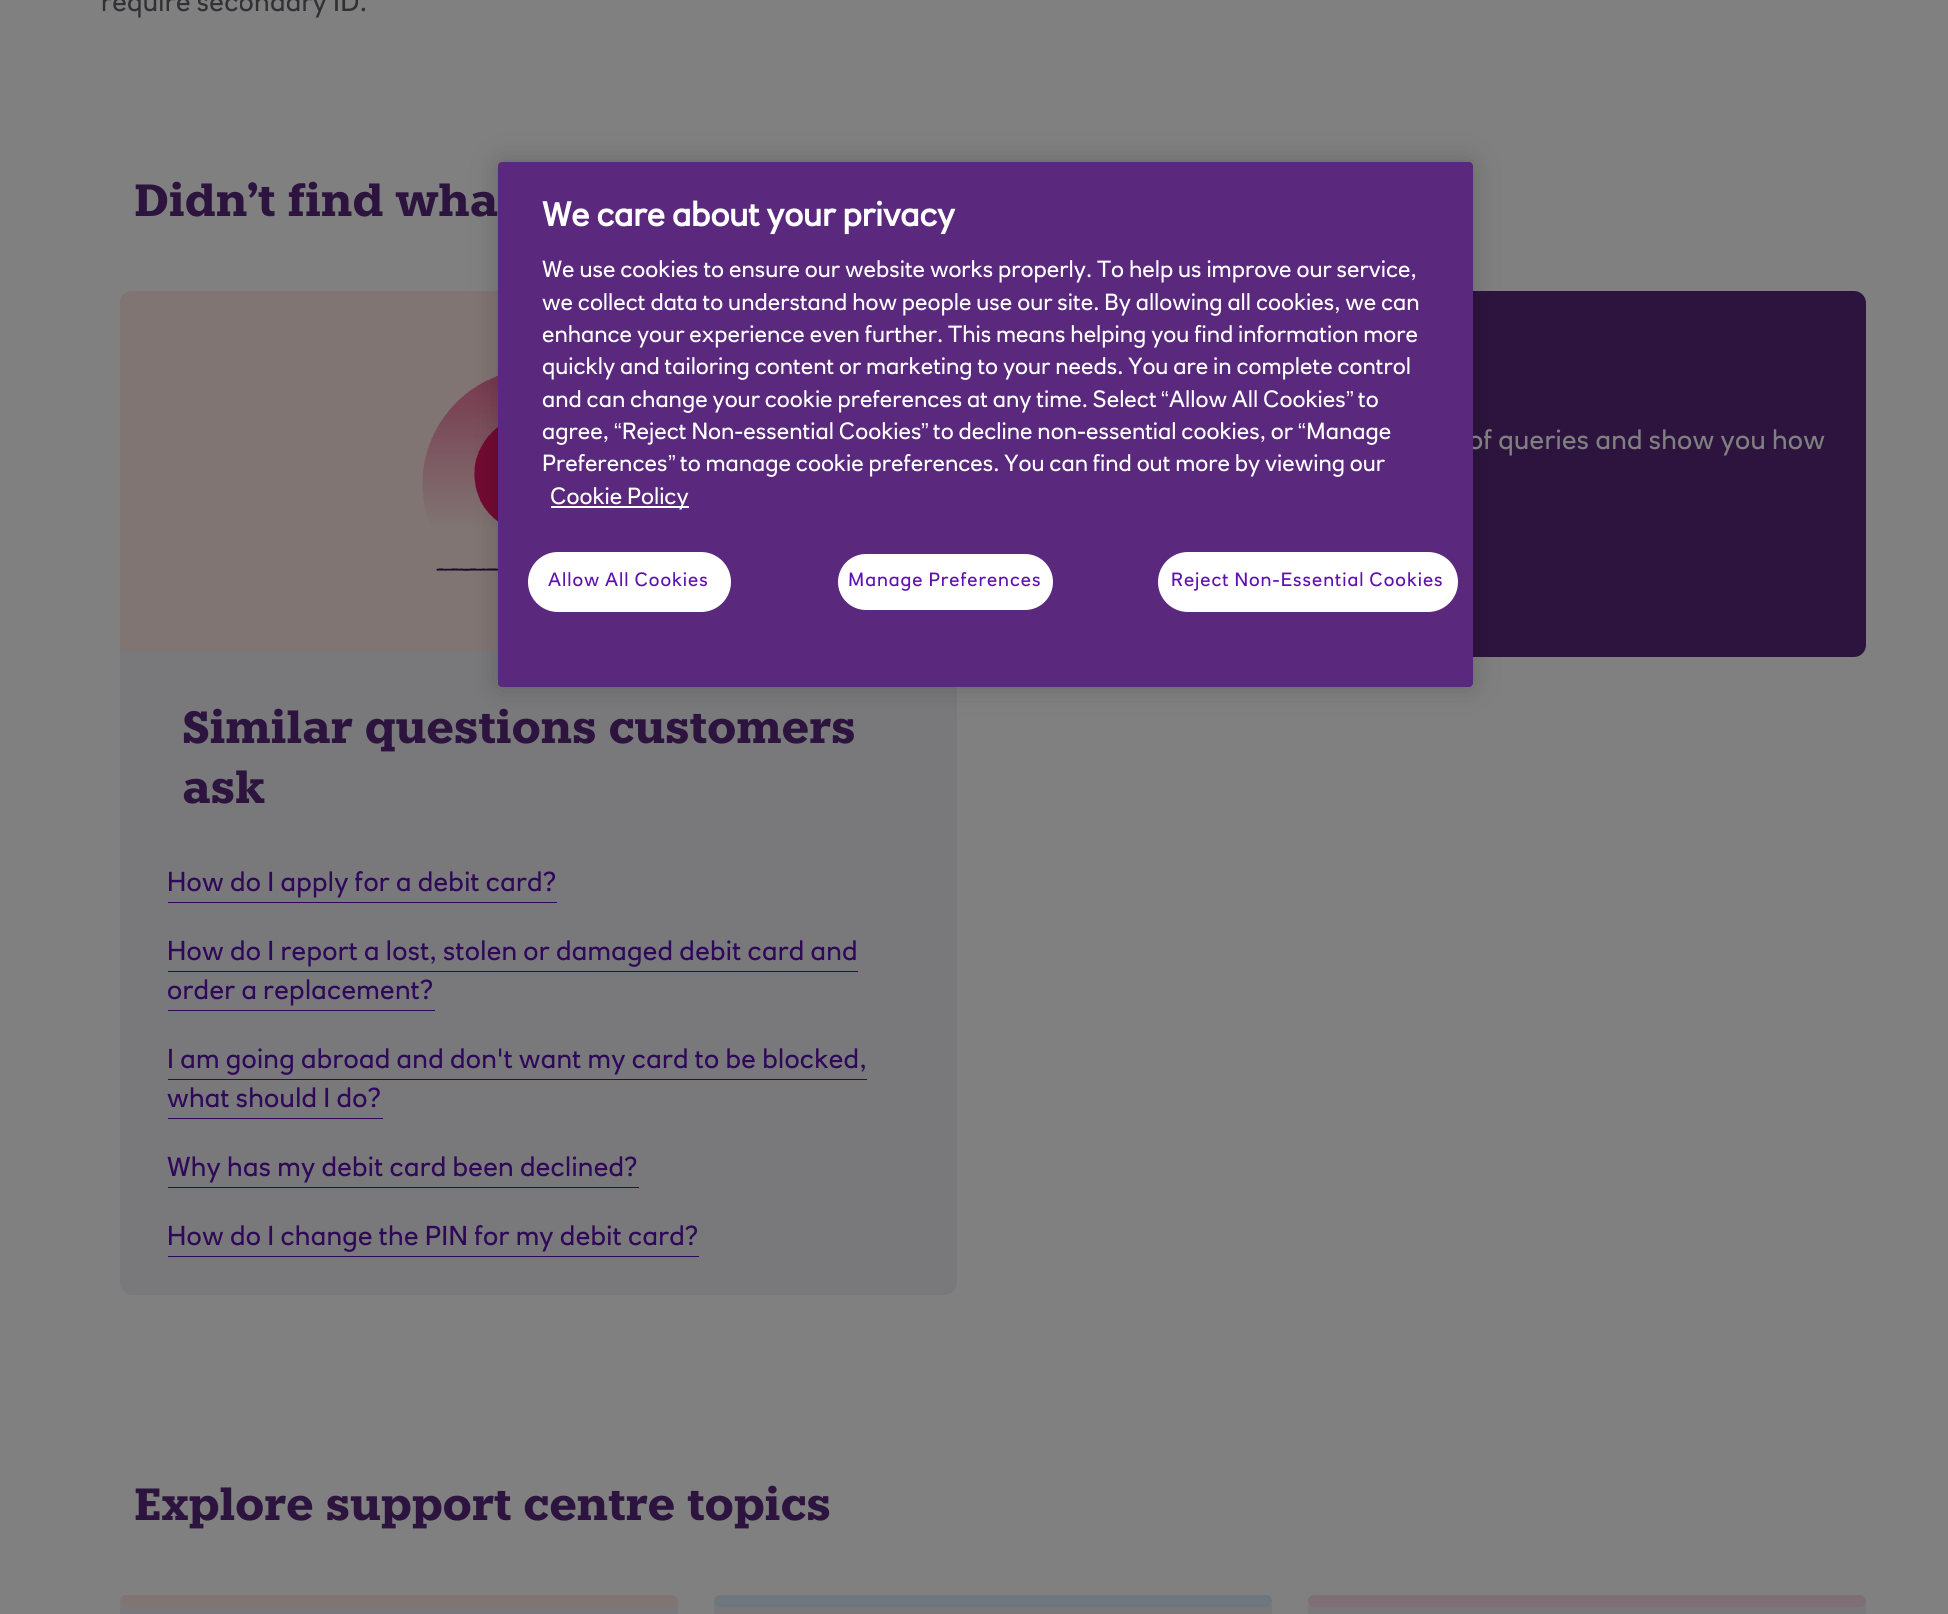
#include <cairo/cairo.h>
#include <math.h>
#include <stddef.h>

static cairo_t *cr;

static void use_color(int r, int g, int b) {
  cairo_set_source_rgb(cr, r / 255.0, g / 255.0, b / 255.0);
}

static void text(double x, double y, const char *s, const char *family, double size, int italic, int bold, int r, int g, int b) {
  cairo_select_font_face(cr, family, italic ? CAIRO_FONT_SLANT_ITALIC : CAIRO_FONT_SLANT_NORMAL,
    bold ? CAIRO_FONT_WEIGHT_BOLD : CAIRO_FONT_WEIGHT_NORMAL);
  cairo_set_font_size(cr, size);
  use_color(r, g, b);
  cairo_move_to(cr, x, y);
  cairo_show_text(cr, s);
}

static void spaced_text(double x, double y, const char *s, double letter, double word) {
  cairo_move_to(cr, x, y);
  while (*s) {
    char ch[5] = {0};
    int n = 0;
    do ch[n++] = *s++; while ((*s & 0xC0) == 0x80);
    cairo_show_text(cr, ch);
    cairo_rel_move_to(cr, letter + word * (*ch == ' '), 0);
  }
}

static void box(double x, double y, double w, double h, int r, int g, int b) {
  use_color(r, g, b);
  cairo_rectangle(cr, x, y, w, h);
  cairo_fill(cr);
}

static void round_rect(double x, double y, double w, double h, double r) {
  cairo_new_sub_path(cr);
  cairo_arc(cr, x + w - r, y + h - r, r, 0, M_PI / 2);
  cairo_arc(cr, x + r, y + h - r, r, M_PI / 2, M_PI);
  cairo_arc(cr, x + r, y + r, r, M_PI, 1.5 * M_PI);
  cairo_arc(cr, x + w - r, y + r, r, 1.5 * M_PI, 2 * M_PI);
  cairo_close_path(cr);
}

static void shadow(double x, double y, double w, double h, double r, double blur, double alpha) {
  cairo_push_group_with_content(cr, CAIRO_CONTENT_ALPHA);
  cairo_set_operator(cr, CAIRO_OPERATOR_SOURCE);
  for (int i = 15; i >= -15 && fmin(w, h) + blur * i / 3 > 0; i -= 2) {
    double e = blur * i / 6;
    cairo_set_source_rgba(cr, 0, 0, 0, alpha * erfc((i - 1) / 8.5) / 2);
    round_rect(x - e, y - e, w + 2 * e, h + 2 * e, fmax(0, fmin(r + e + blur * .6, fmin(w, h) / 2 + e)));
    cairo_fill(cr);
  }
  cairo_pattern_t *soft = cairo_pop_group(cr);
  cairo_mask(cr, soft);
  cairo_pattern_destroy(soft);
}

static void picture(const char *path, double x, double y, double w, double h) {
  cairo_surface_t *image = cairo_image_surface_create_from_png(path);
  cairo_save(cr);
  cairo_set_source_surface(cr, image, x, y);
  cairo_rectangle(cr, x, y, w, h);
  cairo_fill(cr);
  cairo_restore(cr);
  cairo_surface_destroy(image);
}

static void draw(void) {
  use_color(128, 128, 128);
  cairo_paint(cr);
  use_color(45, 20, 63);
  round_rect(1029, 291, 837, 366, 12);
  cairo_fill(cr);
  use_color(121, 121, 124);
  round_rect(120, 291, 837, 1004, 12);
  cairo_fill(cr);
  use_color(128, 117, 115);
  cairo_new_path(cr);
  cairo_move_to(cr, 132, 291);
  cairo_line_to(cr, 945, 291);
  cairo_curve_to(cr, 951.5, 291, 957, 296.5, 957, 303);
  cairo_line_to(cr, 957, 650);
  cairo_line_to(cr, 120, 650);
  cairo_line_to(cr, 120, 303);
  cairo_curve_to(cr, 120, 296.5, 125.5, 291, 132, 291);
  cairo_close_path(cr);
  cairo_fill(cr);
  picture("img_01.png", 422, 375, 76, 196);
  box(168, 902, 389, 1, 47, 8, 89);
  box(168, 971, 690, 1, 47, 8, 89);
  box(168, 1010, 267, 1, 47, 8, 89);
  box(168, 1079, 699, 1, 47, 8, 89);
  box(168, 1118, 215, 1, 47, 8, 89);
  box(168, 1187, 471, 1, 47, 8, 89);
  box(168, 1256, 531, 1, 47, 8, 89);
  use_color(121, 121, 124);
  round_rect(120, 1595, 558, 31, 12);
  cairo_fill(cr);
  use_color(128, 117, 115);
  round_rect(120, 1595, 558, 12, 6);
  cairo_fill(cr);
  use_color(121, 121, 124);
  round_rect(714, 1595, 558, 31, 12);
  cairo_fill(cr);
  use_color(110, 119, 125);
  round_rect(714, 1595, 558, 12, 6);
  cairo_fill(cr);
  use_color(121, 121, 124);
  round_rect(1308, 1595, 558, 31, 12);
  cairo_fill(cr);
  use_color(128, 110, 118);
  round_rect(1308, 1595, 558, 12, 6);
  cairo_fill(cr);
  use_color(0, 0, 0);
  shadow(498, 162, 975, 525, 4, 13.5, 0.2);
  cairo_select_font_face(cr, "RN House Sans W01", CAIRO_FONT_SLANT_NORMAL, CAIRO_FONT_WEIGHT_NORMAL);
  cairo_set_font_size(cr, 27);
  use_color(50, 48, 52);
  spaced_text(101, 11, "require secondary ID.", 0.3, 0);
  cairo_select_font_face(cr, "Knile", CAIRO_FONT_SLANT_NORMAL, CAIRO_FONT_WEIGHT_BOLD);
  cairo_set_font_size(cr, 45);
  use_color(45, 20, 63);
  spaced_text(134, 216, "Didn't find wha", -0.3, 0);
  cairo_select_font_face(cr, "RN House Sans W01", CAIRO_FONT_SLANT_NORMAL, CAIRO_FONT_WEIGHT_NORMAL);
  cairo_set_font_size(cr, 27);
  use_color(128, 128, 128);
  spaced_text(1468, 449, "of queries and show you how", 0.3, 0);
  cairo_select_font_face(cr, "Knile", CAIRO_FONT_SLANT_NORMAL, CAIRO_FONT_WEIGHT_BOLD);
  cairo_set_font_size(cr, 45);
  use_color(45, 20, 63);
  spaced_text(182, 743, "Similar questions customers", -0.3, 0);
  spaced_text(182, 803, "ask", -0.3, 0);
  cairo_select_font_face(cr, "RN House Sans W01", CAIRO_FONT_SLANT_NORMAL, CAIRO_FONT_WEIGHT_NORMAL);
  cairo_set_font_size(cr, 27);
  use_color(47, 8, 89);
  spaced_text(167, 891, "How do I apply for a debit card?", 0.3, 0);
  spaced_text(167, 960, "How do I report a lost, stolen or damaged debit card and", 0.3, 0);
  spaced_text(167, 999, "order a replacement?", 0.3, 0);
  spaced_text(167, 1068, "I am going abroad and don't want my card to be blocked,", 0.3, 0);
  spaced_text(167, 1107, "what should I do?", 0.3, 0);
  spaced_text(167, 1176, "Why has my debit card been declined?", 0.3, 0);
  spaced_text(167, 1245, "How do I change the PIN for my debit card?", 0.3, 0);
  cairo_select_font_face(cr, "Knile", CAIRO_FONT_SLANT_NORMAL, CAIRO_FONT_WEIGHT_BOLD);
  cairo_set_font_size(cr, 45);
  use_color(45, 20, 63);
  spaced_text(134, 1520, "Explore support centre topics", -0.3, 0);
  use_color(90, 40, 125);
  round_rect(498, 162, 975, 525, 4);
  cairo_fill(cr);
  text(542, 226, "We care about your privacy", "RN House Sans W01", 33.6, 0, 1, 255, 255, 255);
  text(542, 277, "We use cookies to ensure our website works properly. To help us improve our service,", "RN House Sans W01", 23.1, 0, 0, 255, 255, 255);
  text(542, 310, "we collect data to understand how people use our site. By allowing all cookies, we can", "RN House Sans W01", 23.1, 0, 0, 255, 255, 255);
  text(542, 342, "enhance your experience even further. This means helping you find information more", "RN House Sans W01", 23.1, 0, 0, 255, 255, 255);
  text(542, 374, "quickly and tailoring content or marketing to your needs. You are in complete control", "RN House Sans W01", 23.1, 0, 0, 255, 255, 255);
  text(542, 407, "and can change your cookie preferences at any time. Select", "RN House Sans W01", 23.1, 0, 0, 255, 255, 255);
  text(1161, 407, "“", "Liberation Sans", 23.1, 0, 0, 255, 255, 255);
  text(1169, 407, "Allow All Cookies", "RN House Sans W01", 23.1, 0, 0, 255, 255, 255);
  text(1346, 407, "”", "Liberation Sans", 23.1, 0, 0, 255, 255, 255);
  text(1358, 407, "to", "RN House Sans W01", 23.1, 0, 0, 255, 255, 255);
  text(614, 439, "“", "Liberation Sans", 23.1, 0, 0, 255, 255, 255);
  text(622, 439, "Reject Non-essential Cookies", "RN House Sans W01", 23.1, 0, 0, 255, 255, 255);
  text(921, 439, "”", "Liberation Sans", 23.1, 0, 0, 255, 255, 255);
  text(933, 439, "to decline non-essential cookies, or", "RN House Sans W01", 23.1, 0, 0, 255, 255, 255);
  text(1298, 439, "“", "Liberation Sans", 23.1, 0, 0, 255, 255, 255);
  text(1306, 439, "Manage", "RN House Sans W01", 23.1, 0, 0, 255, 255, 255);
  text(542, 439, "agree,", "RN House Sans W01", 23.1, 0, 0, 255, 255, 255);
  text(542, 471, "Preferences", "RN House Sans W01", 23.1, 0, 0, 255, 255, 255);
  text(668, 471, "”", "Liberation Sans", 23.1, 0, 0, 255, 255, 255);
  text(680, 471, "to manage cookie preferences. You can find out more by viewing our", "RN House Sans W01", 23.1, 0, 0, 255, 255, 255);
  box(551, 506, 138, 2, 255, 255, 255);
  text(550, 504, "Cookie Policy", "RN House Sans W01", 23.1, 0, 0, 255, 255, 255);
  round_rect(529, 553, 201, 58, 29);
  cairo_fill_preserve(cr);
  cairo_stroke(cr);
  cairo_set_font_size(cr, 18.9);
  use_color(94, 16, 177);
  spaced_text(548, 586, "Allow All Cookies", 0.95, 0);
  use_color(255, 255, 255);
  round_rect(837, 553, 217, 58, 29);
  cairo_fill_preserve(cr);
  use_color(90, 40, 125);
  cairo_stroke(cr);
  use_color(94, 16, 177);
  spaced_text(848, 586, "Manage Preferences", 0.95, 0);
  use_color(255, 255, 255);
  round_rect(1159, 553, 298, 58, 29);
  cairo_fill_preserve(cr);
  cairo_stroke(cr);
  use_color(94, 16, 177);
  spaced_text(1171, 586, "Reject Non-Essential Cookies", 0.95, 0);
}

int main(void) {
  cairo_surface_t *surface = cairo_image_surface_create(CAIRO_FORMAT_RGB24, 1948, 1614);
  cr = cairo_create(surface);
  cairo_font_options_t *options = cairo_font_options_create();
  cairo_font_options_set_hint_metrics(options, CAIRO_HINT_METRICS_OFF);
  cairo_font_options_set_hint_style(options, CAIRO_HINT_STYLE_NONE);
  cairo_set_font_options(cr, options);
  cairo_set_miter_limit(cr, 4);
  draw();
  cairo_surface_write_to_png(surface, "out.png");
  cairo_font_options_destroy(options);
  cairo_destroy(cr);
  cairo_surface_destroy(surface);
  return 0;
}
